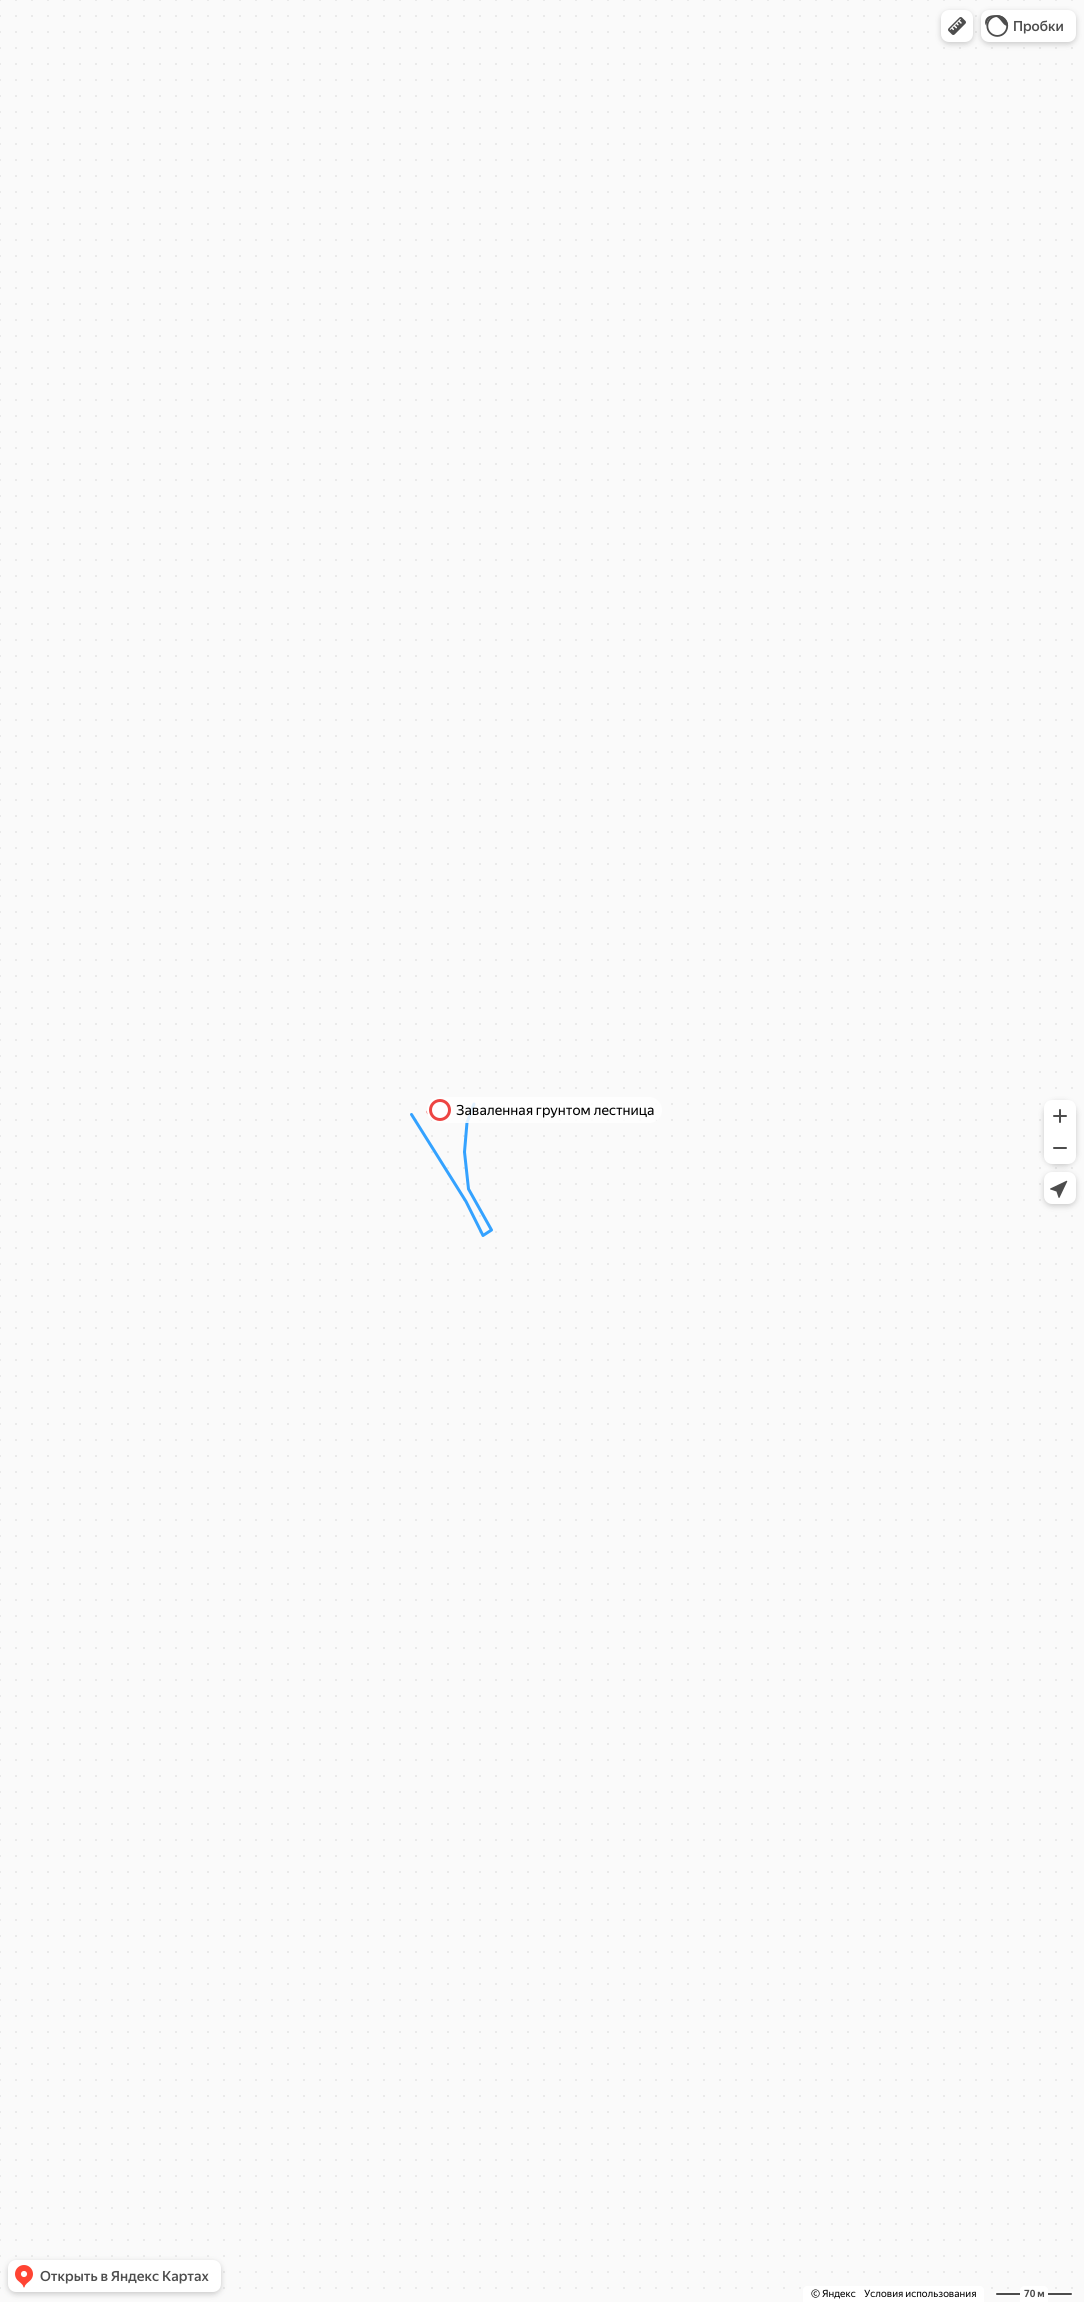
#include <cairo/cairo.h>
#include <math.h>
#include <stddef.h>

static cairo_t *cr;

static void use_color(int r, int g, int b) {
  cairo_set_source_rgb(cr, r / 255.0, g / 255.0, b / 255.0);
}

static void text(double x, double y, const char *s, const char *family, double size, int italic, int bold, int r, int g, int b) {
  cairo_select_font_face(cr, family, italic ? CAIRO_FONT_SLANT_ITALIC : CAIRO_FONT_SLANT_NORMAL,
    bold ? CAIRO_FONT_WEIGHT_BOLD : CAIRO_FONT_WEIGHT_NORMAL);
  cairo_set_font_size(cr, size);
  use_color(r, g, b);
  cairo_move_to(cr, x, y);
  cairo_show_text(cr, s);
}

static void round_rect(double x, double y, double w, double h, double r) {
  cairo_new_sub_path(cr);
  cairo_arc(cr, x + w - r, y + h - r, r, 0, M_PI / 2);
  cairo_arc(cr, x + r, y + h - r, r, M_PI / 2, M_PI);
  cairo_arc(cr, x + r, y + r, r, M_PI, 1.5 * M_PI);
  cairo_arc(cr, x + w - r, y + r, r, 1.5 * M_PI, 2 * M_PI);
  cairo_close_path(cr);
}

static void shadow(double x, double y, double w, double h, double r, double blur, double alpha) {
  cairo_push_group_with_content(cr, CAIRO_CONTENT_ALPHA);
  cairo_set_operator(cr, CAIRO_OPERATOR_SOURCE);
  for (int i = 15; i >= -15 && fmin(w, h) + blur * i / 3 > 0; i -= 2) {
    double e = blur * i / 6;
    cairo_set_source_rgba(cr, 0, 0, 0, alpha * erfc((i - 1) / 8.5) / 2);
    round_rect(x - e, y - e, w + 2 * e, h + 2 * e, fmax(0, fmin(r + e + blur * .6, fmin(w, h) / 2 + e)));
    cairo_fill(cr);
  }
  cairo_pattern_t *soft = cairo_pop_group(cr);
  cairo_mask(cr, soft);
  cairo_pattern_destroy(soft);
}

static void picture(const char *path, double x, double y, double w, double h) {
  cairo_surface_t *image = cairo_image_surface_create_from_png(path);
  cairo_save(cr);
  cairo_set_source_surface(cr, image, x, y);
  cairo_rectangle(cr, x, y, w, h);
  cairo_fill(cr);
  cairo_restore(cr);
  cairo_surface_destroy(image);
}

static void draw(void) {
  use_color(255, 255, 255);
  cairo_paint(cr);
  picture("img_01.png", 0, 0, 1084, 2302);
  use_color(0, 0, 0);
  shadow(941, 12, 32, 32, 8, 3, 0.2);
  use_color(255, 255, 255);
  round_rect(941, 10, 32, 32, 8);
  cairo_fill(cr);
  picture("img_02.png", 948, 17, 18, 18);
  use_color(0, 0, 0);
  shadow(981, 12, 95, 32, 8, 3, 0.2);
  use_color(255, 255, 255);
  round_rect(981, 10, 95, 32, 8);
  cairo_fill(cr);
  picture("img_03.png", 985, 15, 24, 22);
  use_color(0, 0, 0);
  shadow(1044, 1102, 32, 64, 12, 3, 0.2);
  use_color(255, 255, 255);
  cairo_new_path(cr);
  cairo_move_to(cr, 1052, 1100);
  cairo_line_to(cr, 1068, 1100);
  cairo_curve_to(cr, 1072.5, 1100, 1076, 1103.5, 1076, 1108);
  cairo_line_to(cr, 1076, 1132);
  cairo_line_to(cr, 1044, 1132);
  cairo_line_to(cr, 1044, 1108);
  cairo_curve_to(cr, 1044, 1103.5, 1047.5, 1100, 1052, 1100);
  cairo_close_path(cr);
  cairo_fill(cr);
  picture("img_04.png", 1053, 1109, 14, 14);
  cairo_new_path(cr);
  cairo_move_to(cr, 1044, 1132);
  cairo_line_to(cr, 1076, 1132);
  cairo_line_to(cr, 1076, 1156);
  cairo_curve_to(cr, 1076, 1160.5, 1072.5, 1164, 1068, 1164);
  cairo_line_to(cr, 1052, 1164);
  cairo_curve_to(cr, 1047.5, 1164, 1044, 1160.5, 1044, 1156);
  cairo_close_path(cr);
  cairo_fill(cr);
  picture("img_05.png", 1053, 1147, 14, 2);
  use_color(0, 0, 0);
  shadow(1044, 1174, 32, 32, 8, 3, 0.2);
  use_color(255, 255, 255);
  round_rect(1044, 1172, 32, 32, 8);
  cairo_fill(cr);
  picture("img_06.png", 1050, 1180, 18, 18);
  use_color(0, 0, 0);
  shadow(8, 2262, 213, 32, 8, 3, 0.2);
  use_color(255, 255, 255);
  round_rect(8, 2260, 213, 32, 8);
  cairo_fill(cr);
  picture("img_07.png", 15, 2265, 18, 23);
  cairo_new_path(cr);
  cairo_move_to(cr, 807, 2286);
  cairo_line_to(cr, 980, 2286);
  cairo_curve_to(cr, 982, 2286, 984, 2288, 984, 2290);
  cairo_line_to(cr, 984, 2302);
  cairo_line_to(cr, 803, 2302);
  cairo_line_to(cr, 803, 2290);
  cairo_curve_to(cr, 803, 2288, 805, 2286, 807, 2286);
  cairo_close_path(cr);
  cairo_fill(cr);
  use_color(253, 253, 253);
  round_rect(994, 2291, 80, 6, 3);
  cairo_fill(cr);
  use_color(77, 77, 77);
  round_rect(996, 2293, 76, 2, 1);
  cairo_fill(cr);
  use_color(255, 255, 255);
  cairo_new_path(cr);
  cairo_move_to(cr, 1024, 2286);
  cairo_line_to(cr, 1044, 2286);
  cairo_curve_to(cr, 1046, 2286, 1048, 2288, 1048, 2290);
  cairo_line_to(cr, 1048, 2302);
  cairo_line_to(cr, 1020, 2302);
  cairo_line_to(cr, 1020, 2290);
  cairo_curve_to(cr, 1020, 2288, 1022, 2286, 1024, 2286);
  cairo_close_path(cr);
  cairo_fill(cr);
  cairo_new_path(cr);
  cairo_move_to(cr, 429, 1112);
  cairo_line_to(cr, 450, 1108);
  use_color(238, 87, 85);
  cairo_set_line_width(cr, 5);
  cairo_set_line_cap(cr, CAIRO_LINE_CAP_ROUND);
  cairo_set_line_join(cr, CAIRO_LINE_JOIN_ROUND);
  cairo_stroke(cr);
  cairo_new_path(cr);
  cairo_move_to(cr, 411.5, 1114.5);
  cairo_line_to(cr, 466, 1201.5);
  cairo_line_to(cr, 483, 1235.5);
  cairo_line_to(cr, 491.5, 1230);
  cairo_line_to(cr, 468.5, 1189);
  cairo_line_to(cr, 464.5, 1152);
  cairo_line_to(cr, 467, 1122.5);
  cairo_line_to(cr, 474, 1104);
  cairo_set_source_rgba(cr, 0.118, 0.596, 1, 0.9);
  cairo_set_line_width(cr, 3);
  cairo_stroke(cr);
  cairo_set_source_rgba(cr, 1, 1, 1, 0.85);
  round_rect(427, 1097, 235, 26, 13);
  cairo_fill(cr);
  picture("img_08.png", 427, 1099, 26, 22);
  text(1013, 31, "Пробки", "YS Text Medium", 14, 0, 0, 77, 77, 77);
  text(40, 2281, "Открыть в Яндекс Картах", "YS Text Medium", 14, 0, 0, 77, 77, 77);
  text(811, 2297, "© Яндекс", "YS Text", 10, 0, 0, 0, 0, 0);
  text(864, 2297, "Условия использования", "YS Text", 10, 0, 0, 0, 0, 0);
  text(1024, 2297, "70 м", "YS Text", 10, 0, 1, 77, 77, 77);
  text(456, 1115, "Заваленная грунтом лестница", "YS Text", 14, 0, 0, 0, 0, 0);
}

int main(void) {
  cairo_surface_t *surface = cairo_image_surface_create(CAIRO_FORMAT_RGB24, 1084, 2302);
  cr = cairo_create(surface);
  cairo_font_options_t *options = cairo_font_options_create();
  cairo_font_options_set_hint_metrics(options, CAIRO_HINT_METRICS_OFF);
  cairo_font_options_set_hint_style(options, CAIRO_HINT_STYLE_NONE);
  cairo_set_font_options(cr, options);
  cairo_set_miter_limit(cr, 4);
  draw();
  cairo_surface_write_to_png(surface, "out.png");
  cairo_font_options_destroy(options);
  cairo_destroy(cr);
  cairo_surface_destroy(surface);
  return 0;
}
